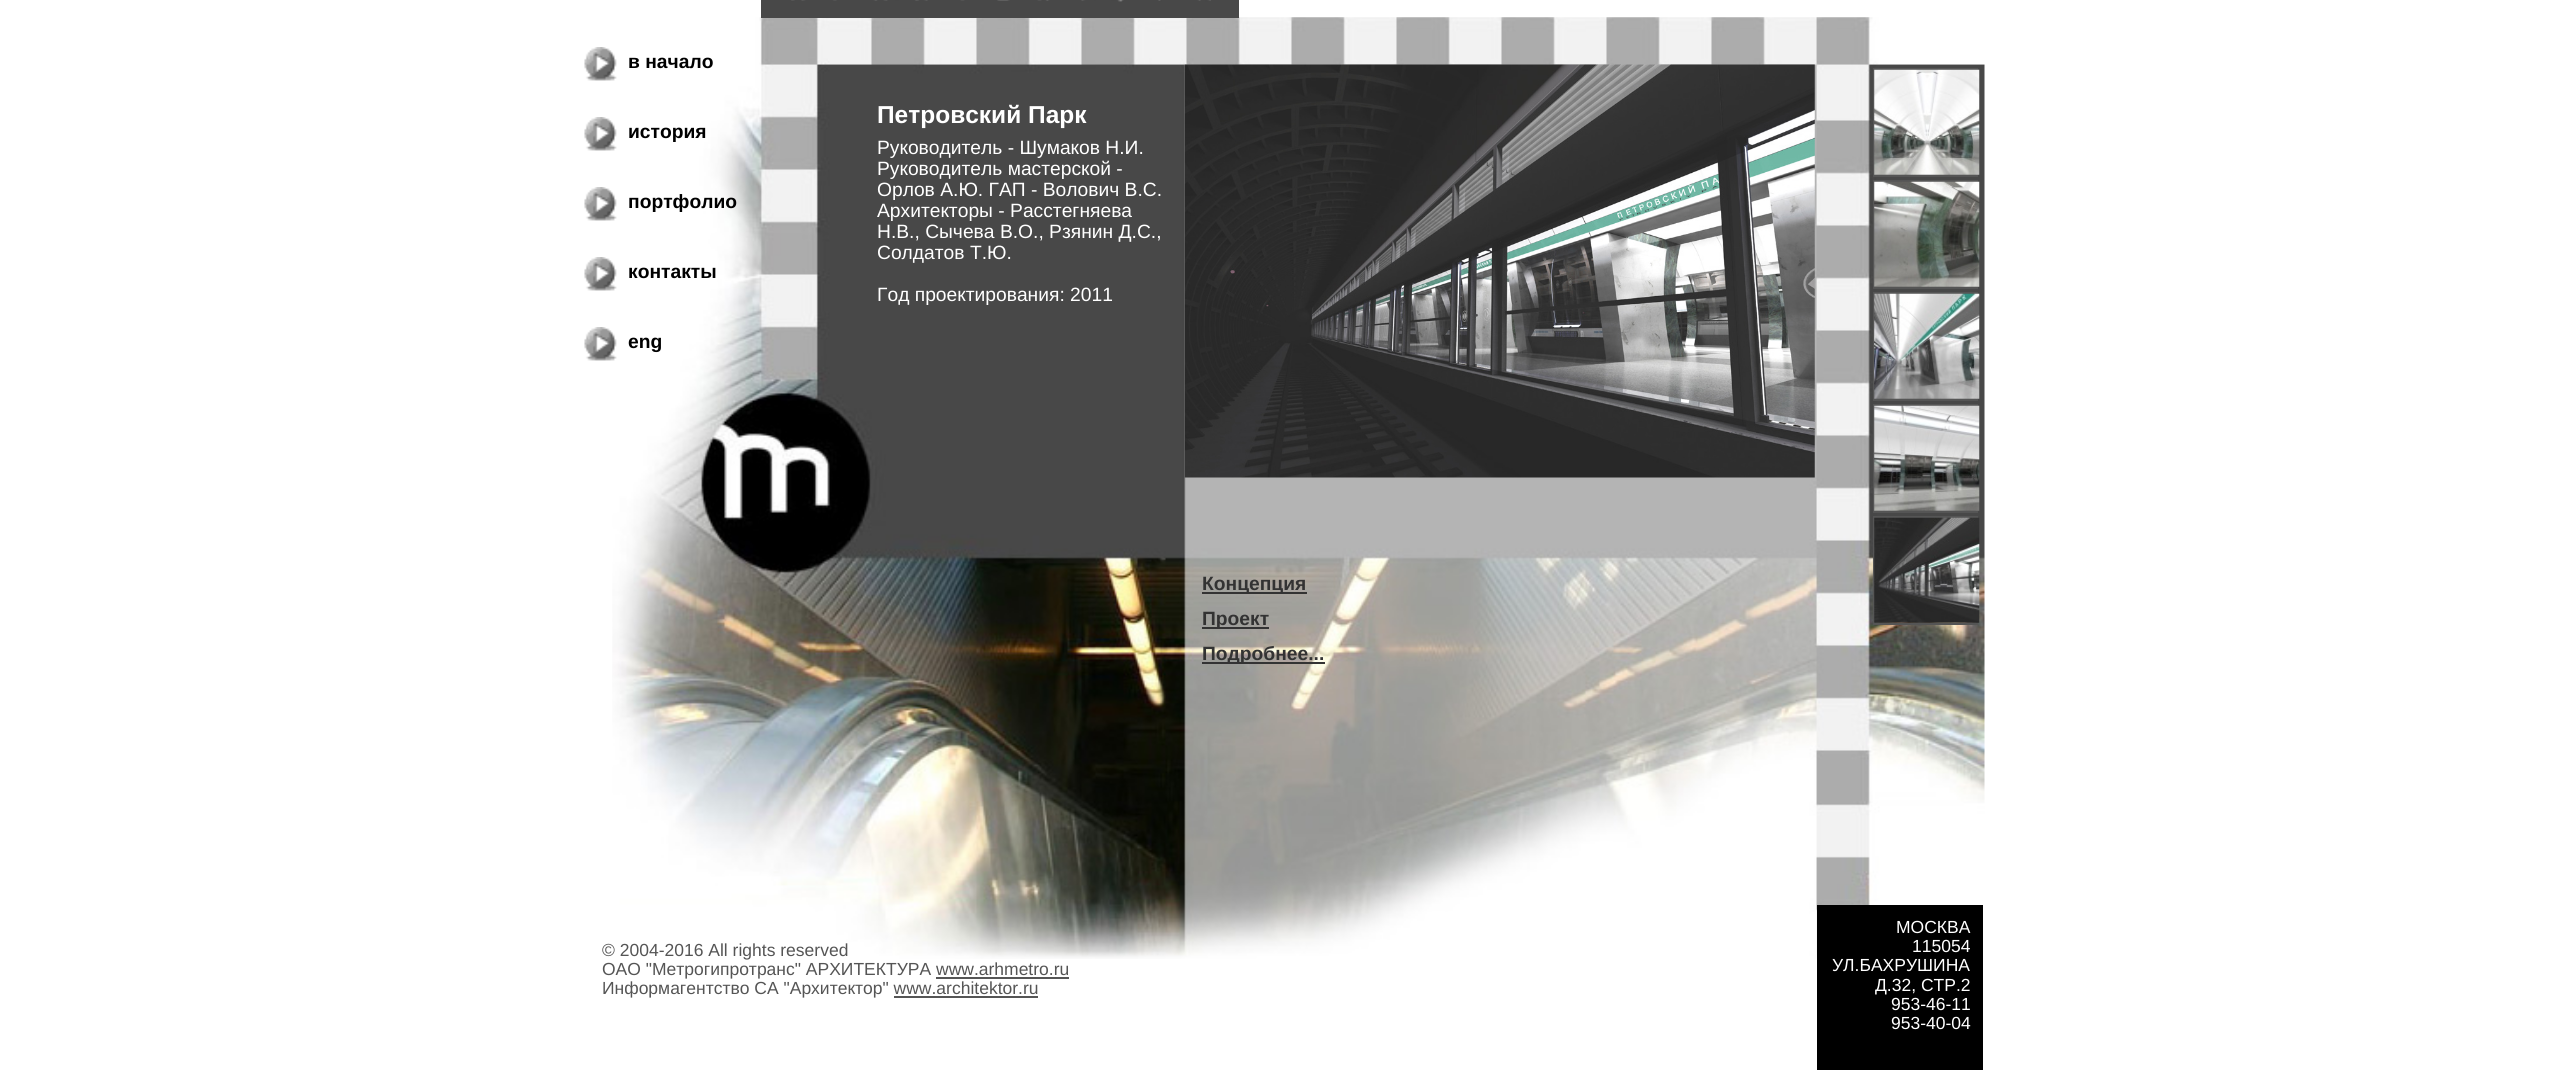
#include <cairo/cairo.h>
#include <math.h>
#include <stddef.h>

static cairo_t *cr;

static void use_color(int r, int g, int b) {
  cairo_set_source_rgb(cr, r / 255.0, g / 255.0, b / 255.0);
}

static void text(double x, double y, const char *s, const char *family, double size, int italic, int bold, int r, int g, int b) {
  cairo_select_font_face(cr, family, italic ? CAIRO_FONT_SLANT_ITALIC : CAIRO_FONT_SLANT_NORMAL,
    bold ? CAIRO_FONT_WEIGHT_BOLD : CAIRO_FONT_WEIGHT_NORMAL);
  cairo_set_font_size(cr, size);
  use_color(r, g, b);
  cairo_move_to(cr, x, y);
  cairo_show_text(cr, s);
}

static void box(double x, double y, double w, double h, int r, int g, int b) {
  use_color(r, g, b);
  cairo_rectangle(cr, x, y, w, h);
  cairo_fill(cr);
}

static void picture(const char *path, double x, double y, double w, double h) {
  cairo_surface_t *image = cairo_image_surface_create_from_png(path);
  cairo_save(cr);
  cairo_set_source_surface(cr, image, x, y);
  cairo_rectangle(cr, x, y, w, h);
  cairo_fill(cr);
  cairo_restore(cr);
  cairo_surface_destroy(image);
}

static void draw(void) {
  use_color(255, 255, 255);
  cairo_paint(cr);
  picture("img_01.png", 612, 17, 1373, 942);
  box(761, 0, 478, 18, 72, 72, 72);
  picture("img_02.png", 791, 0, 420, 2);
  picture("img_03.png", 584, 47, 33, 34);
  picture("img_04.png", 584, 117, 33, 34);
  picture("img_04.png", 584, 187, 33, 34);
  picture("img_04.png", 584, 257, 33, 34);
  picture("img_04.png", 584, 327, 33, 34);
  picture("img_05.png", 1184, 64, 631, 414);
  cairo_rectangle(cr, 1874, 69, 103, 107);
  use_color(85, 85, 85);
  cairo_stroke(cr);
  picture("img_06.png", 1874, 69, 106, 106);
  cairo_rectangle(cr, 1874, 181, 103, 107);
  cairo_stroke(cr);
  picture("img_07.png", 1874, 181, 106, 106);
  cairo_rectangle(cr, 1874, 293, 103, 107);
  cairo_stroke(cr);
  picture("img_08.png", 1874, 293, 106, 106);
  cairo_rectangle(cr, 1874, 405, 103, 107);
  cairo_stroke(cr);
  picture("img_09.png", 1874, 405, 106, 106);
  cairo_rectangle(cr, 1874, 517, 103, 107);
  cairo_stroke(cr);
  picture("img_10.png", 1874, 517, 106, 106);
  box(1202, 592, 105, 2, 51, 51, 51);
  box(1202, 627, 67, 2, 51, 51, 51);
  box(1202, 662, 123, 2, 51, 51, 51);
  box(936, 977, 133, 2, 85, 85, 85);
  box(894, 996, 144, 2, 85, 85, 85);
  box(1817, 905, 166, 165, 0, 0, 0);
  text(628, 68, "в начало", "Liberation Sans", 19.25, 0, 1, 0, 0, 0);
  text(628, 138, "история", "Liberation Sans", 19.25, 0, 1, 0, 0, 0);
  text(628, 208, "портфолио", "Liberation Sans", 19.25, 0, 1, 0, 0, 0);
  text(628, 278, "контакты", "Liberation Sans", 19.25, 0, 1, 0, 0, 0);
  text(628, 348, "eng", "Liberation Sans", 19.25, 0, 1, 0, 0, 0);
  text(877, 123, "Петровский Парк", "Liberation Sans", 24.5, 0, 1, 255, 255, 255);
  text(877, 154, "Руководитель - Шумаков Н.И.", "Liberation Sans", 19.25, 0, 0, 255, 255, 255);
  text(877, 175, "Руководитель мастерской -", "Liberation Sans", 19.25, 0, 0, 255, 255, 255);
  text(877, 196, "Орлов А.Ю. ГАП - Волович В.С.", "Liberation Sans", 19.25, 0, 0, 255, 255, 255);
  text(877, 217, "Архитекторы - Расстегняева", "Liberation Sans", 19.25, 0, 0, 255, 255, 255);
  text(877, 238, "Н.В., Сычева В.О., Рзянин Д.С.,", "Liberation Sans", 19.25, 0, 0, 255, 255, 255);
  text(877, 259, "Солдатов Т.Ю.", "Liberation Sans", 19.25, 0, 0, 255, 255, 255);
  text(877, 301, "Год проектирования: 2011", "Liberation Sans", 19.25, 0, 0, 255, 255, 255);
  text(1202, 590, "Концепция", "Liberation Sans", 19.25, 0, 1, 51, 51, 51);
  text(1202, 625, "Проект", "Liberation Sans", 19.25, 0, 1, 51, 51, 51);
  text(1202, 660, "Подробнее...", "Liberation Sans", 19.25, 0, 1, 51, 51, 51);
  text(602, 956, "© 2004-2016 All rights reserved", "Liberation Sans", 17.5, 0, 0, 85, 85, 85);
  text(602, 975, "ОАО \"Метрогипротранс\" АРХИТЕКТУРА www.arhmetro.ru", "Liberation Sans", 17.5, 0, 0, 85, 85, 85);
  text(602, 994, "Информагентство СА \"Архитектор\" www.architektor.ru", "Liberation Sans", 17.5, 0, 0, 85, 85, 85);
  text(1896, 933, "МОСКВА", "Liberation Sans", 17.5, 0, 0, 255, 255, 255);
  text(1912, 952, "115054", "Liberation Sans", 17.5, 0, 0, 255, 255, 255);
  text(1832, 971, "УЛ.БАХРУШИНА", "Liberation Sans", 17.5, 0, 0, 255, 255, 255);
  text(1875, 991, "Д.32, СТР.2", "Liberation Sans", 17.5, 0, 0, 255, 255, 255);
  text(1891, 1010, "953-46-11", "Liberation Sans", 17.5, 0, 0, 255, 255, 255);
  text(1891, 1029, "953-40-04", "Liberation Sans", 17.5, 0, 0, 255, 255, 255);
}

int main(void) {
  cairo_surface_t *surface = cairo_image_surface_create(CAIRO_FORMAT_RGB24, 2568, 1070);
  cr = cairo_create(surface);
  cairo_font_options_t *options = cairo_font_options_create();
  cairo_font_options_set_hint_metrics(options, CAIRO_HINT_METRICS_OFF);
  cairo_font_options_set_hint_style(options, CAIRO_HINT_STYLE_NONE);
  cairo_set_font_options(cr, options);
  cairo_set_miter_limit(cr, 4);
  draw();
  cairo_surface_write_to_png(surface, "out.png");
  cairo_font_options_destroy(options);
  cairo_destroy(cr);
  cairo_surface_destroy(surface);
  return 0;
}
